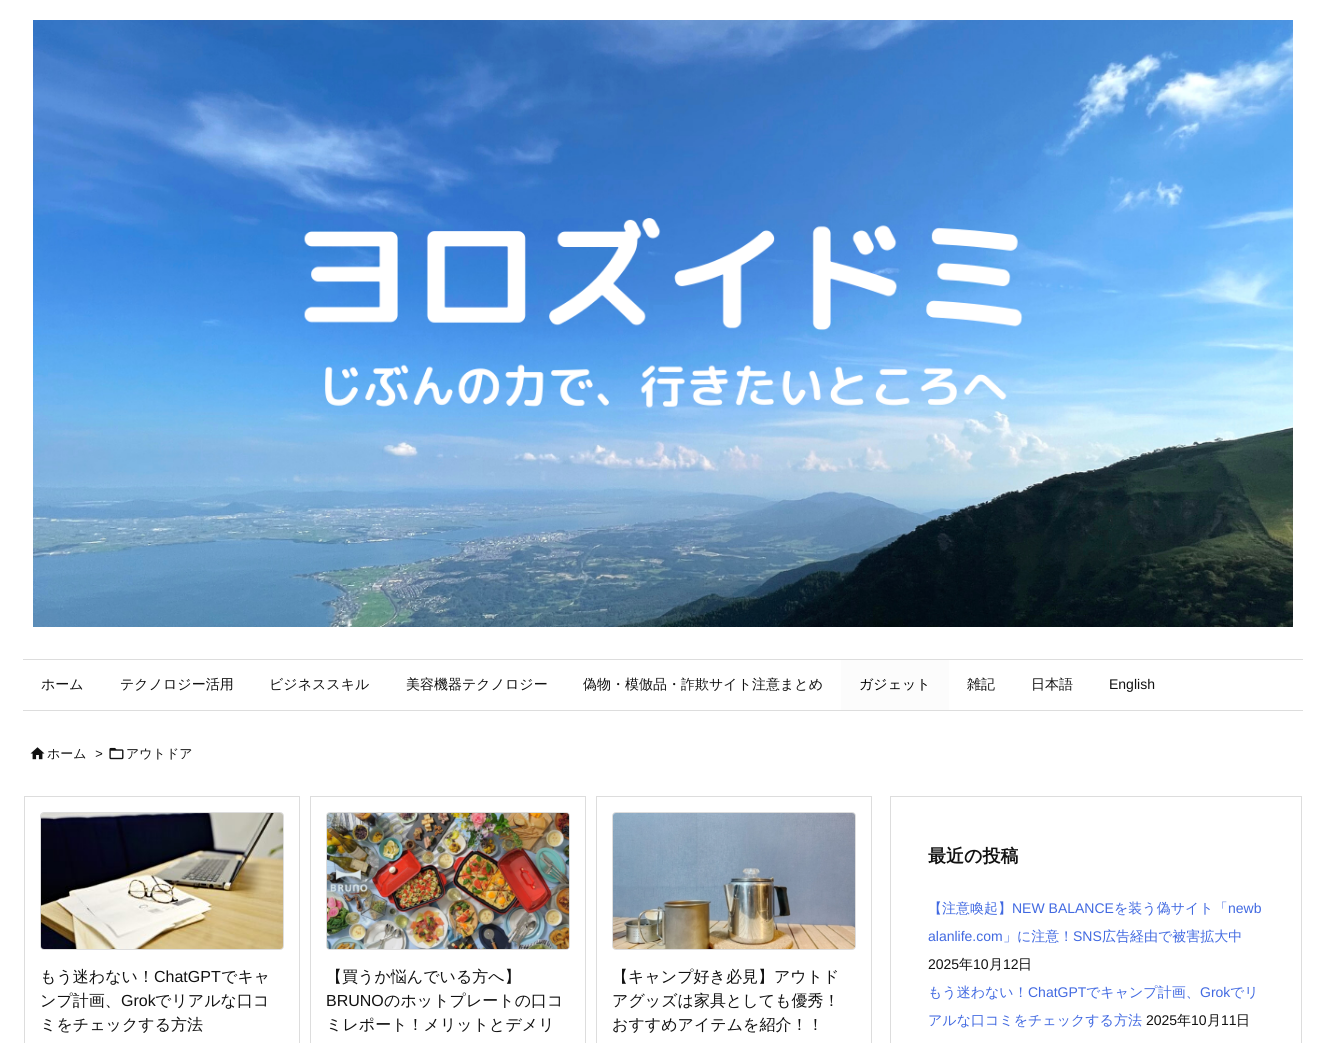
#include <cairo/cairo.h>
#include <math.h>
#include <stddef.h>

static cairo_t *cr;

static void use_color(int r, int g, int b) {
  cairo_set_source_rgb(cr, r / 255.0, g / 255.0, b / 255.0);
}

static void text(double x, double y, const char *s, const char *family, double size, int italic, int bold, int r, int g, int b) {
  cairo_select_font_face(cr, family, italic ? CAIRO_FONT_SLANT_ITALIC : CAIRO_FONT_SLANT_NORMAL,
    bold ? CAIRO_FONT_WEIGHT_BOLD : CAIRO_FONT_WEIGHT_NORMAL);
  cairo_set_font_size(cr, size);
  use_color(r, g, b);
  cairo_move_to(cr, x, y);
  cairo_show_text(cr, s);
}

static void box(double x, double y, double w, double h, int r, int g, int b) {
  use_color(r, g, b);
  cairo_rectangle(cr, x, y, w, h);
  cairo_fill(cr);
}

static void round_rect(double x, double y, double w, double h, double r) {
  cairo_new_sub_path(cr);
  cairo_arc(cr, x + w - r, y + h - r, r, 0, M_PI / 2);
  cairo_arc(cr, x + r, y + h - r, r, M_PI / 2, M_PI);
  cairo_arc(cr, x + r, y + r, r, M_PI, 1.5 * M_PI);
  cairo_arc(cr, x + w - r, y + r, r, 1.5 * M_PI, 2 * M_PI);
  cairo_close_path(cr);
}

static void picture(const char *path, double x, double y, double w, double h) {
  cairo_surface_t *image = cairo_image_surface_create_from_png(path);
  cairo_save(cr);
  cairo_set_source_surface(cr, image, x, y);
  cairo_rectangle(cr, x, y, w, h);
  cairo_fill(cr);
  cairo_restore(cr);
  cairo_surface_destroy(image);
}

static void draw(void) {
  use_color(255, 255, 255);
  cairo_paint(cr);
  picture("img_01.png", 33, 20, 1260, 607);
  box(23, 659, 1280, 1, 221, 221, 221);
  box(23, 710, 1280, 1, 221, 221, 221);
  box(841, 660, 108, 50, 252, 252, 252);
  picture("img_02.png", 30, 747, 15, 13);
  picture("img_03.png", 109, 747, 15, 13);
  cairo_rectangle(cr, 24.5, 796.5, 275, 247);
  use_color(221, 221, 221);
  cairo_set_line_width(cr, 1);
  cairo_stroke(cr);
  round_rect(40.5, 812.5, 243, 137, 3.5);
  cairo_stroke(cr);
  picture("img_04.png", 41, 813, 242, 136);
  cairo_rectangle(cr, 310.5, 796.5, 275, 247);
  cairo_stroke(cr);
  round_rect(326.5, 812.5, 243, 137, 3.5);
  cairo_stroke(cr);
  picture("img_05.png", 327, 813, 242, 136);
  cairo_rectangle(cr, 596.5, 796.5, 275, 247);
  cairo_stroke(cr);
  round_rect(612.5, 812.5, 243, 137, 3.5);
  cairo_stroke(cr);
  picture("img_06.png", 613, 813, 242, 136);
  cairo_rectangle(cr, 890.5, 796.5, 411, 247);
  cairo_stroke(cr);
  text(41, 689, "ホーム", "WenQuanYi Zen Hei Medium", 14, 0, 0, 17, 17, 17);
  text(120, 689, "テクノロジー活用", "WenQuanYi Zen Hei Medium", 14, 0, 0, 17, 17, 17);
  text(269, 689, "ビジネススキル", "WenQuanYi Zen Hei Medium", 14, 0, 0, 17, 17, 17);
  text(406, 689, "美容機器テクノロジー", "WenQuanYi Zen Hei Medium", 14, 0, 0, 17, 17, 17);
  text(583, 689, "偽物・模倣品・詐欺サイト注意まとめ", "WenQuanYi Zen Hei Medium", 14, 0, 0, 17, 17, 17);
  text(859, 689, "ガジェット", "WenQuanYi Zen Hei Medium", 14, 0, 0, 0, 0, 0);
  text(967, 689, "雑記", "WenQuanYi Zen Hei Medium", 14, 0, 0, 17, 17, 17);
  text(1031, 689, "日本語", "WenQuanYi Zen Hei Medium", 14, 0, 0, 17, 17, 17);
  text(1109, 689, "English", "Liberation Sans", 14, 0, 0, 17, 17, 17);
  text(47, 758, "ホーム", "WenQuanYi Zen Hei Medium", 13, 0, 0, 17, 17, 17);
  text(95, 758, ">", "Liberation Sans", 13, 1, 0, 17, 17, 17);
  text(126, 758, "アウトドア", "WenQuanYi Zen Hei Medium", 13, 0, 0, 17, 17, 17);
  text(40, 982, "もう迷わない！", "WenQuanYi Zen Hei Medium", 16, 0, 0, 17, 17, 17);
  text(154, 982, "ChatGPT", "Liberation Sans", 16, 0, 0, 17, 17, 17);
  text(221, 982, "でキャ", "WenQuanYi Zen Hei Medium", 16, 0, 0, 17, 17, 17);
  text(40, 1006, "ンプ計画、", "WenQuanYi Zen Hei Medium", 16, 0, 0, 17, 17, 17);
  text(121, 1006, "Grok", "Liberation Sans", 16, 0, 0, 17, 17, 17);
  text(155, 1006, "でリアルな口コ", "WenQuanYi Zen Hei Medium", 16, 0, 0, 17, 17, 17);
  text(40, 1030, "ミをチェックする方法", "WenQuanYi Zen Hei Medium", 16, 0, 0, 17, 17, 17);
  text(326, 982, "【買うか悩んでいる方へ】", "WenQuanYi Zen Hei Medium", 16, 0, 0, 17, 17, 17);
  text(326, 1006, "BRUNO", "Liberation Sans", 16, 0, 0, 17, 17, 17);
  text(384, 1006, "のホットプレートの口コ", "WenQuanYi Zen Hei Medium", 16, 0, 0, 17, 17, 17);
  text(326, 1030, "ミレポート！メリットとデメリ", "WenQuanYi Zen Hei Medium", 16, 0, 0, 17, 17, 17);
  text(612, 982, "【キャンプ好き必見】アウトド", "WenQuanYi Zen Hei Medium", 16, 0, 0, 17, 17, 17);
  text(612, 1006, "アグッズは家具としても優秀！", "WenQuanYi Zen Hei Medium", 16, 0, 0, 17, 17, 17);
  text(612, 1030, "おすすめアイテムを紹介！！", "WenQuanYi Zen Hei Medium", 16, 0, 0, 17, 17, 17);
  text(928, 862, "最近の投稿", "WenQuanYi Zen Hei", 18, 0, 1, 17, 17, 17);
  text(928, 913, "【注意喚起】", "WenQuanYi Zen Hei Medium", 14, 0, 0, 65, 105, 225);
  text(1012, 913, "NEW BALANCE", "Liberation Sans", 14, 0, 0, 65, 105, 225);
  text(1114, 913, "を装う偽サイト「", "WenQuanYi Zen Hei Medium", 14, 0, 0, 65, 105, 225);
  text(1228, 913, "newb", "Liberation Sans", 14, 0, 0, 65, 105, 225);
  text(928, 941, "alanlife.com", "Liberation Sans", 14, 0, 0, 65, 105, 225);
  text(1003, 941, "」に注意！", "WenQuanYi Zen Hei Medium", 14, 0, 0, 65, 105, 225);
  text(1073, 941, "SNS", "Liberation Sans", 14, 0, 0, 65, 105, 225);
  text(1102, 941, "広告経由で被害拡大中", "WenQuanYi Zen Hei Medium", 14, 0, 0, 65, 105, 225);
  text(928, 969, "2025", "Liberation Sans", 14, 0, 0, 17, 17, 17);
  text(959, 969, "年", "WenQuanYi Zen Hei Medium", 14, 0, 0, 17, 17, 17);
  text(973, 969, "10", "Liberation Sans", 14, 0, 0, 17, 17, 17);
  text(989, 969, "月", "WenQuanYi Zen Hei Medium", 14, 0, 0, 17, 17, 17);
  text(1003, 969, "12", "Liberation Sans", 14, 0, 0, 17, 17, 17);
  text(1018, 969, "日", "WenQuanYi Zen Hei Medium", 14, 0, 0, 17, 17, 17);
  text(928, 997, "もう迷わない！", "WenQuanYi Zen Hei Medium", 14, 0, 0, 65, 105, 225);
  text(1028, 997, "ChatGPT", "Liberation Sans", 14, 0, 0, 65, 105, 225);
  text(1086, 997, "でキャンプ計画、", "WenQuanYi Zen Hei Medium", 14, 0, 0, 65, 105, 225);
  text(1200, 997, "Grok", "Liberation Sans", 14, 0, 0, 65, 105, 225);
  text(1230, 997, "でリ", "WenQuanYi Zen Hei Medium", 14, 0, 0, 65, 105, 225);
  text(928, 1025, "アルな口コミをチェックする方法", "WenQuanYi Zen Hei Medium", 14, 0, 0, 65, 105, 225);
  text(1146, 1025, "2025", "Liberation Sans", 14, 0, 0, 17, 17, 17);
  text(1177, 1025, "年", "WenQuanYi Zen Hei Medium", 14, 0, 0, 17, 17, 17);
  text(1191, 1025, "10", "Liberation Sans", 14, 0, 0, 17, 17, 17);
  text(1207, 1025, "月", "WenQuanYi Zen Hei Medium", 14, 0, 0, 17, 17, 17);
  text(1221, 1025, "11", "Liberation Sans", 14, 0, 0, 17, 17, 17);
  text(1236, 1025, "日", "WenQuanYi Zen Hei Medium", 14, 0, 0, 17, 17, 17);
}

int main(void) {
  cairo_surface_t *surface = cairo_image_surface_create(CAIRO_FORMAT_RGB24, 1326, 1043);
  cr = cairo_create(surface);
  cairo_font_options_t *options = cairo_font_options_create();
  cairo_font_options_set_hint_metrics(options, CAIRO_HINT_METRICS_OFF);
  cairo_font_options_set_hint_style(options, CAIRO_HINT_STYLE_NONE);
  cairo_set_font_options(cr, options);
  cairo_set_miter_limit(cr, 4);
  draw();
  cairo_surface_write_to_png(surface, "out.png");
  cairo_font_options_destroy(options);
  cairo_destroy(cr);
  cairo_surface_destroy(surface);
  return 0;
}
